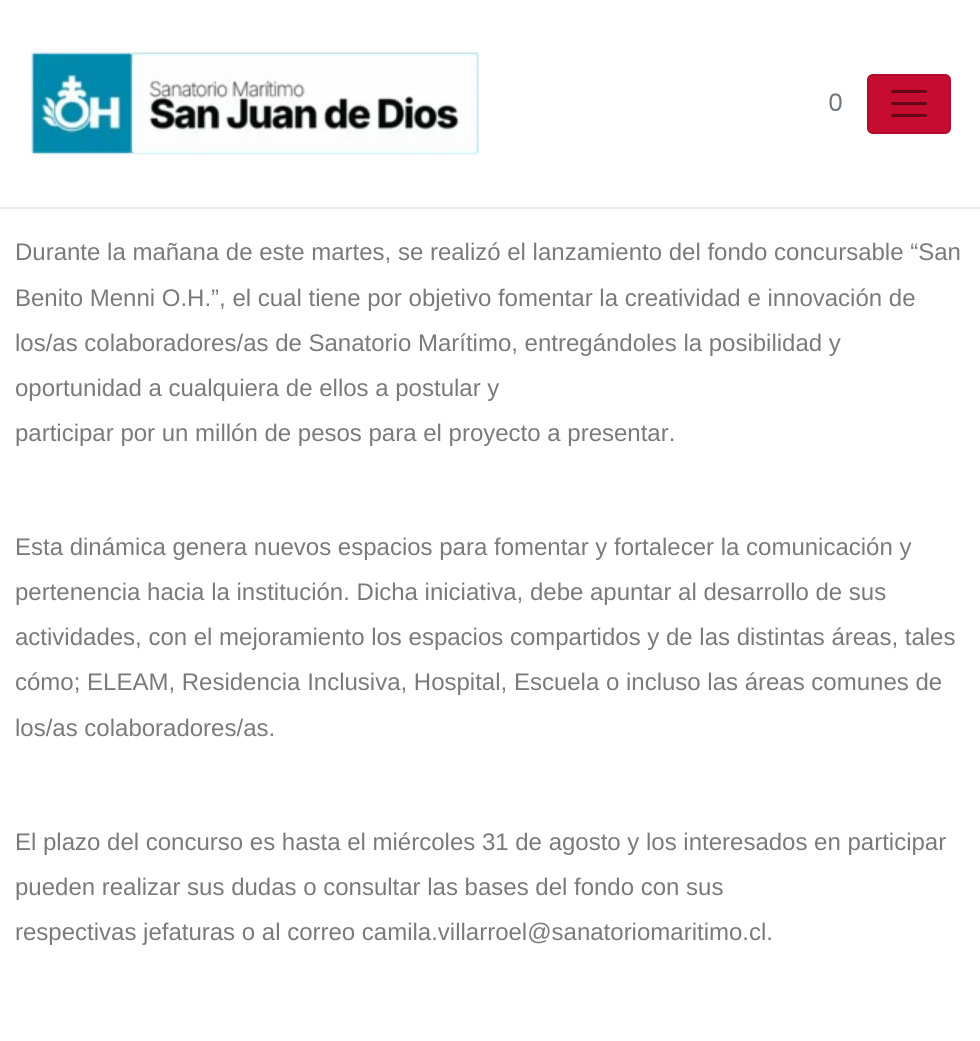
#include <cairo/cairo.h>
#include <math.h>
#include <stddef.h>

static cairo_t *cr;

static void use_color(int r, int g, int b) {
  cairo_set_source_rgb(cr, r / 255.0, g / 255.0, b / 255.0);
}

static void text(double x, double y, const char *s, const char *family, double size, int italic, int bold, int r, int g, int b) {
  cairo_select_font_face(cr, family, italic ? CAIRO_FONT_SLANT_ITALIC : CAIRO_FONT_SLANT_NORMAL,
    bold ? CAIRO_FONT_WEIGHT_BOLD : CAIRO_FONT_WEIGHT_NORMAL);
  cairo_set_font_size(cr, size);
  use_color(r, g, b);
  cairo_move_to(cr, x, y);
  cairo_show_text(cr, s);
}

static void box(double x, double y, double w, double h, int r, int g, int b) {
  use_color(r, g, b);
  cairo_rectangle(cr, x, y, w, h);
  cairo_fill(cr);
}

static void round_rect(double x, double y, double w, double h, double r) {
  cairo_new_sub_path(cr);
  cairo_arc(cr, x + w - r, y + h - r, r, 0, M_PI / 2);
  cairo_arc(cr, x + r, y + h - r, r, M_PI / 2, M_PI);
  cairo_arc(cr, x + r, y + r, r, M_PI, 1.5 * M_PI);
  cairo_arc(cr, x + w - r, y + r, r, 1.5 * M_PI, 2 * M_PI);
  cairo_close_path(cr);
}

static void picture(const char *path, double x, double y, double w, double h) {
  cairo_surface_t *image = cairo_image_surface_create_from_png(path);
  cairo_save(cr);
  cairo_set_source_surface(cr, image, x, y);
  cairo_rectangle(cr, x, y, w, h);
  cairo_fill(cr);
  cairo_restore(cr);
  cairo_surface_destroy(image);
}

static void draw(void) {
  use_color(255, 255, 255);
  cairo_paint(cr);
  box(0, 207, 980, 2, 233, 236, 239);
  picture("img_01.png", 31, 52, 448, 103);
  use_color(198, 12, 48);
  round_rect(867, 74, 84, 60, 6);
  cairo_fill(cr);
  round_rect(868, 75, 82, 58, 5);
  cairo_set_source_rgba(cr, 0, 0, 0, 0.1);
  cairo_stroke(cr);
  cairo_new_path(cr);
  cairo_move_to(cr, 892.5, 91.5);
  cairo_line_to(cr, 925.5, 91.5);
  cairo_move_to(cr, 892.5, 103.5);
  cairo_line_to(cr, 925.5, 103.5);
  cairo_move_to(cr, 892.5, 115.5);
  cairo_line_to(cr, 925.5, 115.5);
  use_color(99, 6, 24);
  cairo_set_line_width(cr, 3);
  cairo_set_line_cap(cr, CAIRO_LINE_CAP_ROUND);
  cairo_stroke(cr);
  text(828, 111, "0", "Poppins", 24, 0, 0, 108, 117, 125);
  text(15, 260, "Durante la mañana de este martes, se realizó el lanzamiento del fondo concursable “San", "Liberation Sans", 24, 0, 0, 122, 122, 122);
  text(15, 306, "Benito Menni O.H.”, el cual tiene por objetivo fomentar la creatividad e innovación de", "Liberation Sans", 24, 0, 0, 122, 122, 122);
  text(15, 351, "los/as colaboradores/as de Sanatorio Marítimo, entregándoles la posibilidad y", "Liberation Sans", 24, 0, 0, 122, 122, 122);
  text(15, 396, "oportunidad a cualquiera de ellos a postular y", "Liberation Sans", 24, 0, 0, 122, 122, 122);
  text(15, 441, "participar por un millón de pesos para el proyecto a presentar.", "Liberation Sans", 24, 0, 0, 122, 122, 122);
  text(15, 555, "Esta dinámica genera nuevos espacios para fomentar y fortalecer la comunicación y", "Liberation Sans", 24, 0, 0, 122, 122, 122);
  text(15, 600, "pertenencia hacia la institución. Dicha iniciativa, debe apuntar al desarrollo de sus", "Liberation Sans", 24, 0, 0, 122, 122, 122);
  text(15, 645, "actividades, con el mejoramiento los espacios compartidos y de las distintas áreas, tales", "Liberation Sans", 24, 0, 0, 122, 122, 122);
  text(15, 690, "cómo; ELEAM, Residencia Inclusiva, Hospital, Escuela o incluso las áreas comunes de", "Liberation Sans", 24, 0, 0, 122, 122, 122);
  text(15, 736, "los/as colaboradores/as.", "Liberation Sans", 24, 0, 0, 122, 122, 122);
  text(15, 850, "El plazo del concurso es hasta el miércoles 31 de agosto y los interesados en participar", "Liberation Sans", 24, 0, 0, 122, 122, 122);
  text(15, 895, "pueden realizar sus dudas o consultar las bases del fondo con sus", "Liberation Sans", 24, 0, 0, 122, 122, 122);
  text(15, 940, "respectivas jefaturas o al correo camila.villarroel@sanatoriomaritimo.cl.", "Liberation Sans", 24, 0, 0, 122, 122, 122);
}

int main(void) {
  cairo_surface_t *surface = cairo_image_surface_create(CAIRO_FORMAT_RGB24, 980, 1041);
  cr = cairo_create(surface);
  cairo_font_options_t *options = cairo_font_options_create();
  cairo_font_options_set_hint_metrics(options, CAIRO_HINT_METRICS_OFF);
  cairo_font_options_set_hint_style(options, CAIRO_HINT_STYLE_NONE);
  cairo_set_font_options(cr, options);
  cairo_set_miter_limit(cr, 4);
  draw();
  cairo_surface_write_to_png(surface, "out.png");
  cairo_font_options_destroy(options);
  cairo_destroy(cr);
  cairo_surface_destroy(surface);
  return 0;
}
